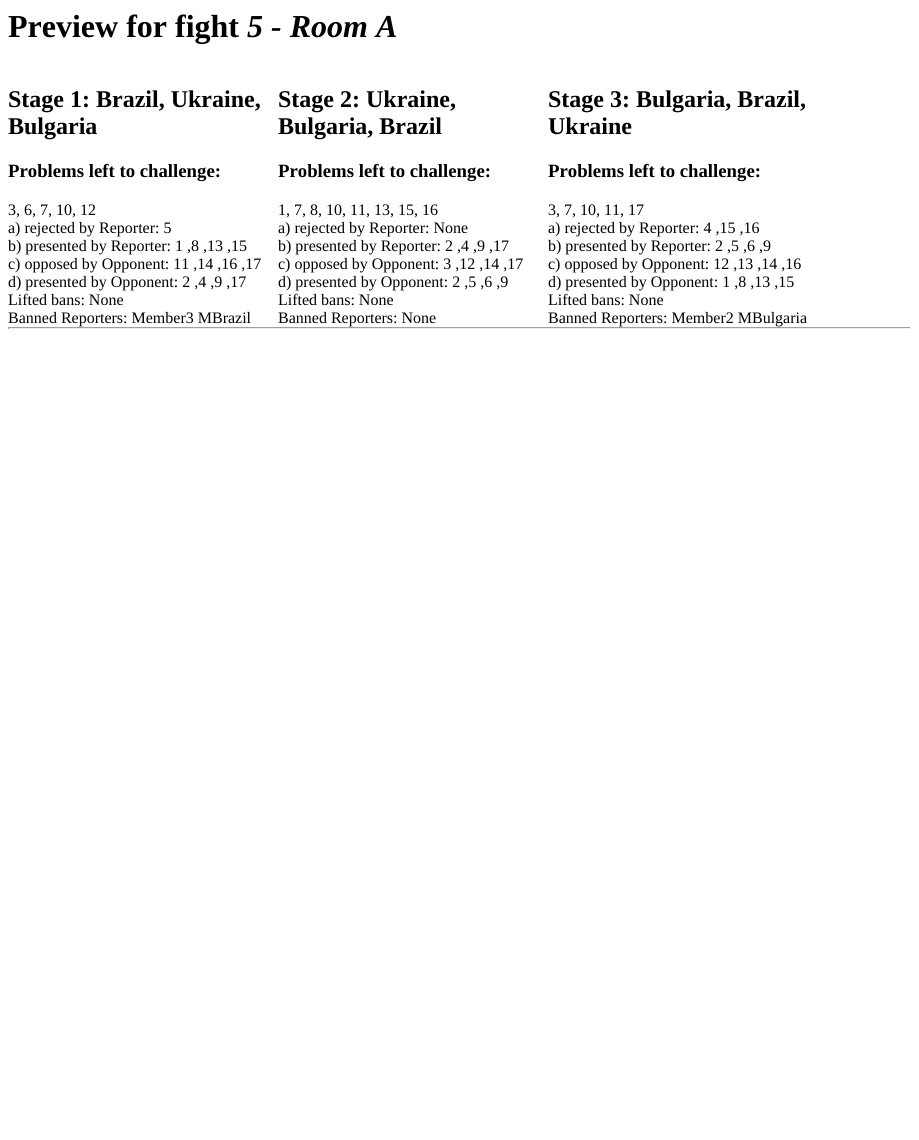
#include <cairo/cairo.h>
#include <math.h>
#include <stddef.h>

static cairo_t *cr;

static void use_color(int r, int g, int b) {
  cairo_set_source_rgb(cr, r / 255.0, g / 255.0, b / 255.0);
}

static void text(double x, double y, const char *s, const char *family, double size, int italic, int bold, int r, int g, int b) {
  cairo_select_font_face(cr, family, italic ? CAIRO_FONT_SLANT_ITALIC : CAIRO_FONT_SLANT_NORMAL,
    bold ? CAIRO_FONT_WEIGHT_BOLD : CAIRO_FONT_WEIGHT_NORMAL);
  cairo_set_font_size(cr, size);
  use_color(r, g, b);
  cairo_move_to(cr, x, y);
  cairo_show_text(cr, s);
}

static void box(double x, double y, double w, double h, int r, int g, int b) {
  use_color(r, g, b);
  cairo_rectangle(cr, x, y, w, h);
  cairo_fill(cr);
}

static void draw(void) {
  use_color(255, 255, 255);
  cairo_paint(cr);
  box(8, 327, 903, 1, 159, 159, 159);
  box(910, 327, 1, 2, 238, 238, 238);
  box(8, 328, 903, 1, 238, 238, 238);
  box(8, 327, 1, 2, 159, 159, 159);
  text(8, 37, "Preview for fight", "Liberation Serif", 32, 0, 1, 0, 0, 0);
  text(247, 37, "5 - Room A", "Liberation Serif", 32, 1, 1, 0, 0, 0);
  text(8, 107, "Stage 1: Brazil, Ukraine,", "Liberation Serif", 24, 0, 1, 0, 0, 0);
  text(8, 134, "Bulgaria", "Liberation Serif", 24, 0, 1, 0, 0, 0);
  text(8, 177, "Problems left to challenge:", "Liberation Serif", 18.75, 0, 1, 0, 0, 0);
  text(8, 215, "3, 6, 7, 10, 12", "Liberation Serif", 16, 0, 0, 0, 0, 0);
  text(8, 233, "a) rejected by Reporter: 5", "Liberation Serif", 16, 0, 0, 0, 0, 0);
  text(8, 251, "b) presented by Reporter: 1 ,8 ,13 ,15", "Liberation Serif", 16, 0, 0, 0, 0, 0);
  text(8, 269, "c) opposed by Opponent: 11 ,14 ,16 ,17", "Liberation Serif", 16, 0, 0, 0, 0, 0);
  text(8, 287, "d) presented by Opponent: 2 ,4 ,9 ,17", "Liberation Serif", 16, 0, 0, 0, 0, 0);
  text(8, 305, "Lifted bans: None", "Liberation Serif", 16, 0, 0, 0, 0, 0);
  text(8, 323, "Banned Reporters: Member3 MBrazil", "Liberation Serif", 16, 0, 0, 0, 0, 0);
  text(278, 107, "Stage 2: Ukraine,", "Liberation Serif", 24, 0, 1, 0, 0, 0);
  text(278, 134, "Bulgaria, Brazil", "Liberation Serif", 24, 0, 1, 0, 0, 0);
  text(278, 177, "Problems left to challenge:", "Liberation Serif", 18.75, 0, 1, 0, 0, 0);
  text(278, 215, "1, 7, 8, 10, 11, 13, 15, 16", "Liberation Serif", 16, 0, 0, 0, 0, 0);
  text(278, 233, "a) rejected by Reporter: None", "Liberation Serif", 16, 0, 0, 0, 0, 0);
  text(278, 251, "b) presented by Reporter: 2 ,4 ,9 ,17", "Liberation Serif", 16, 0, 0, 0, 0, 0);
  text(278, 269, "c) opposed by Opponent: 3 ,12 ,14 ,17", "Liberation Serif", 16, 0, 0, 0, 0, 0);
  text(278, 287, "d) presented by Opponent: 2 ,5 ,6 ,9", "Liberation Serif", 16, 0, 0, 0, 0, 0);
  text(278, 305, "Lifted bans: None", "Liberation Serif", 16, 0, 0, 0, 0, 0);
  text(278, 323, "Banned Reporters: None", "Liberation Serif", 16, 0, 0, 0, 0, 0);
  text(548, 107, "Stage 3: Bulgaria, Brazil,", "Liberation Serif", 24, 0, 1, 0, 0, 0);
  text(548, 134, "Ukraine", "Liberation Serif", 24, 0, 1, 0, 0, 0);
  text(548, 177, "Problems left to challenge:", "Liberation Serif", 18.75, 0, 1, 0, 0, 0);
  text(548, 215, "3, 7, 10, 11, 17", "Liberation Serif", 16, 0, 0, 0, 0, 0);
  text(548, 233, "a) rejected by Reporter: 4 ,15 ,16", "Liberation Serif", 16, 0, 0, 0, 0, 0);
  text(548, 251, "b) presented by Reporter: 2 ,5 ,6 ,9", "Liberation Serif", 16, 0, 0, 0, 0, 0);
  text(548, 269, "c) opposed by Opponent: 12 ,13 ,14 ,16", "Liberation Serif", 16, 0, 0, 0, 0, 0);
  text(548, 287, "d) presented by Opponent: 1 ,8 ,13 ,15", "Liberation Serif", 16, 0, 0, 0, 0, 0);
  text(548, 305, "Lifted bans: None", "Liberation Serif", 16, 0, 0, 0, 0, 0);
  text(548, 323, "Banned Reporters: Member2 MBulgaria", "Liberation Serif", 16, 0, 0, 0, 0, 0);
}

int main(void) {
  cairo_surface_t *surface = cairo_image_surface_create(CAIRO_FORMAT_RGB24, 919, 1140);
  cr = cairo_create(surface);
  cairo_font_options_t *options = cairo_font_options_create();
  cairo_font_options_set_hint_metrics(options, CAIRO_HINT_METRICS_OFF);
  cairo_font_options_set_hint_style(options, CAIRO_HINT_STYLE_NONE);
  cairo_set_font_options(cr, options);
  cairo_set_miter_limit(cr, 4);
  draw();
  cairo_surface_write_to_png(surface, "out.png");
  cairo_font_options_destroy(options);
  cairo_destroy(cr);
  cairo_surface_destroy(surface);
  return 0;
}
